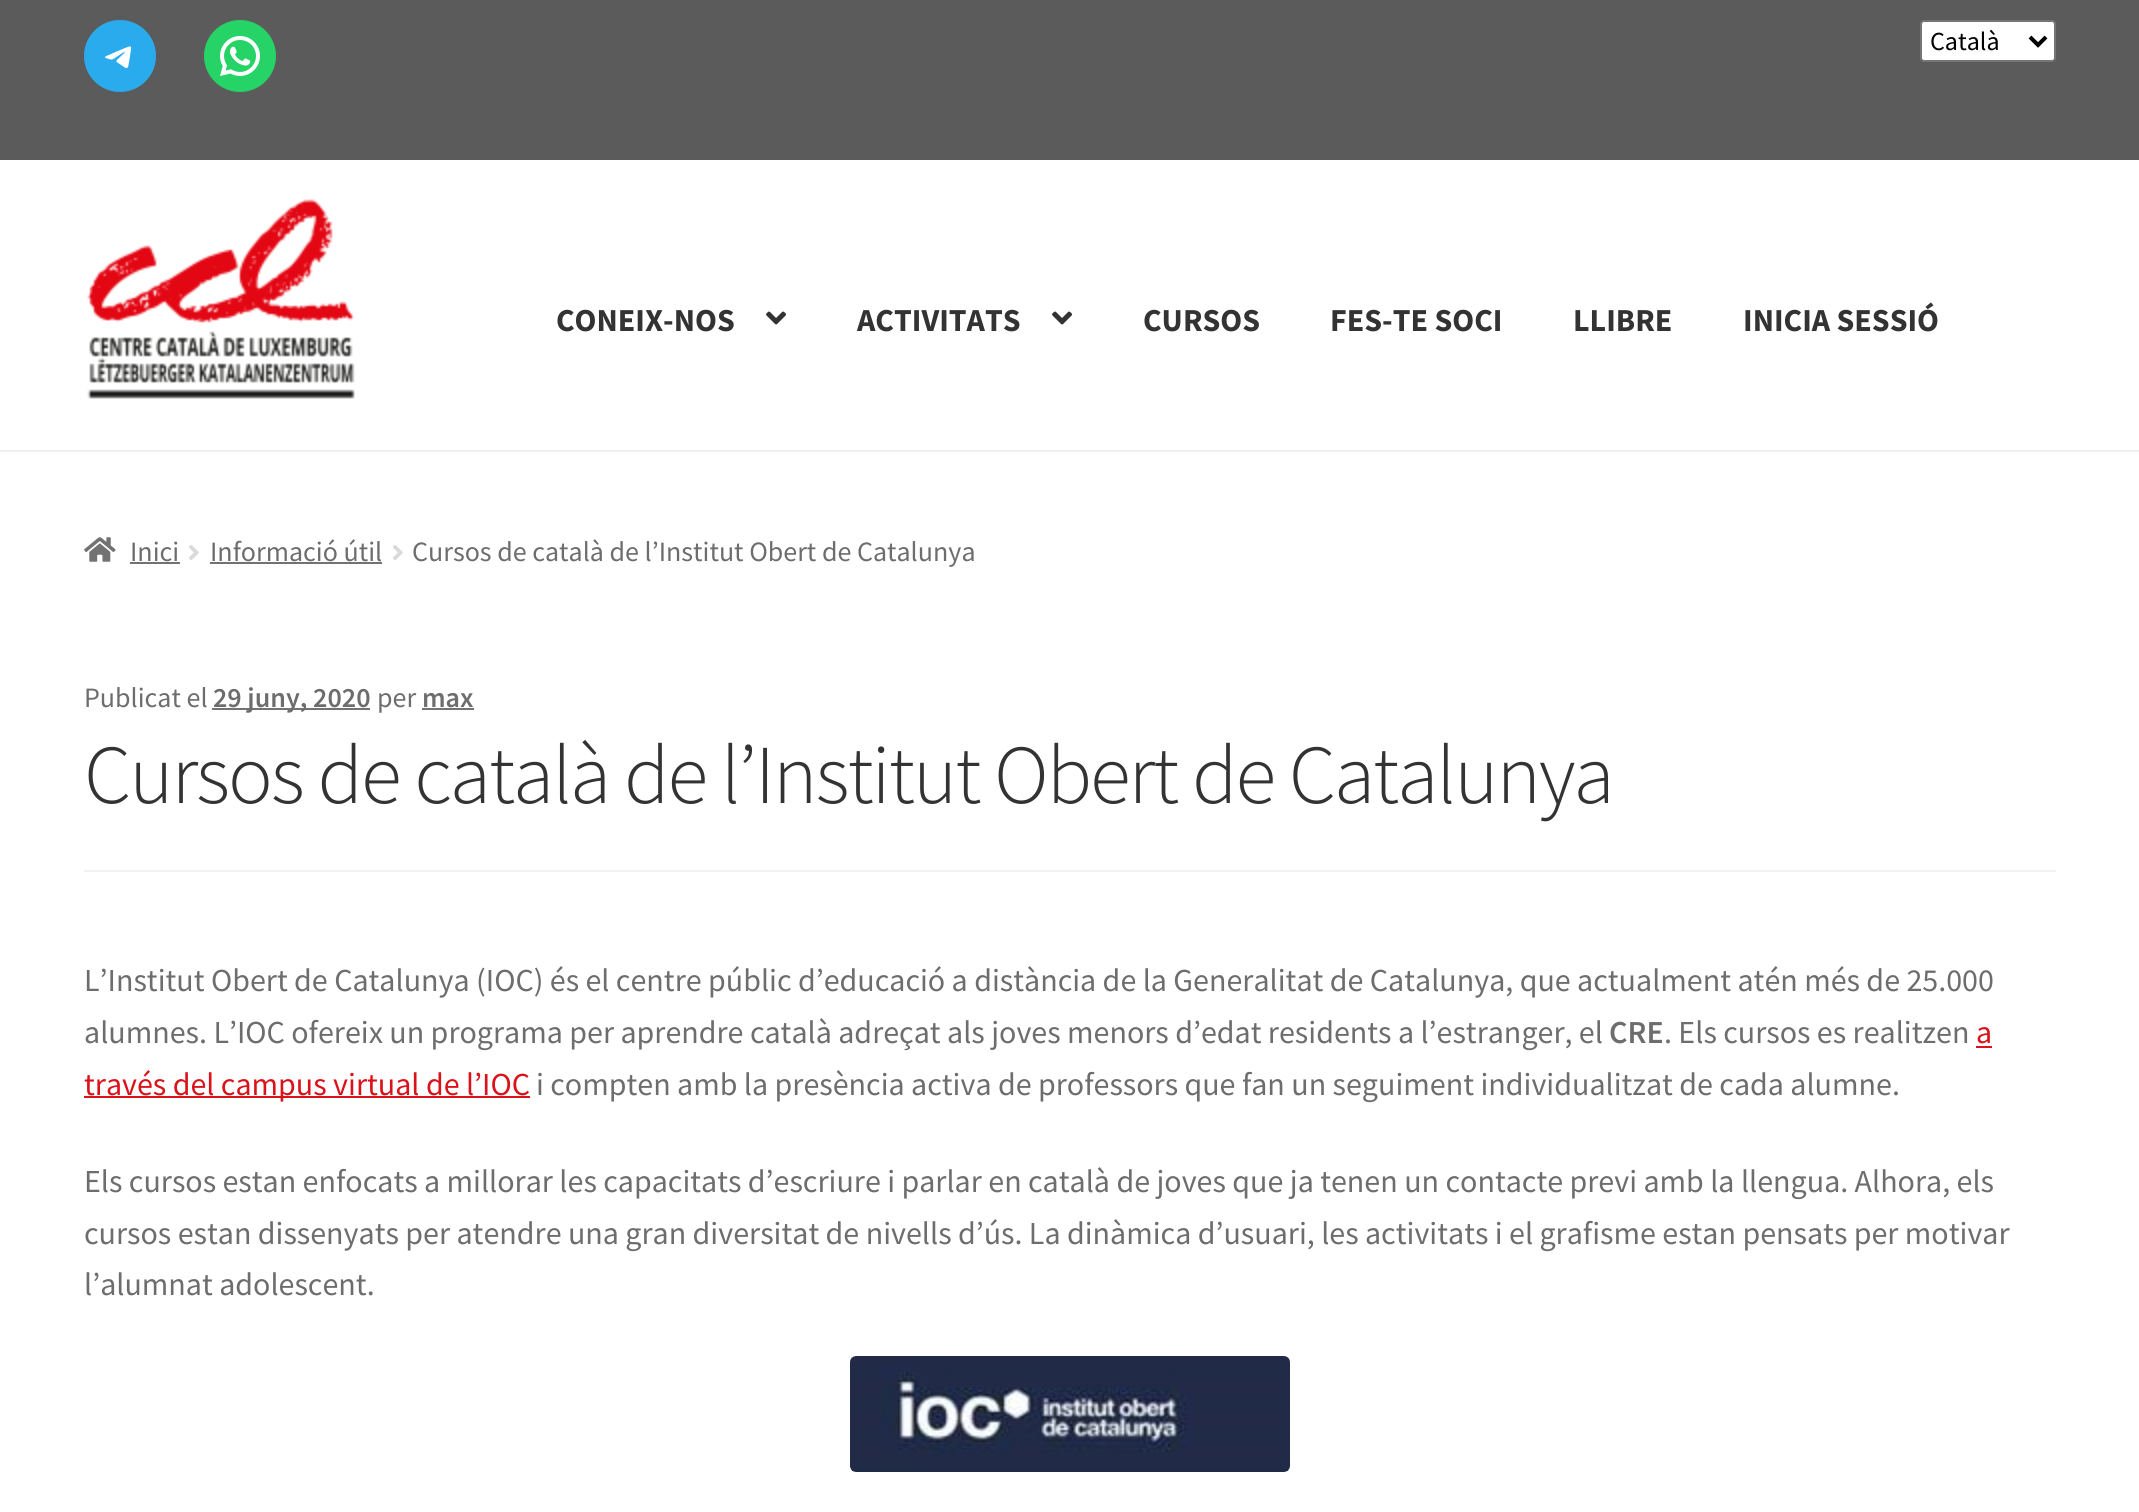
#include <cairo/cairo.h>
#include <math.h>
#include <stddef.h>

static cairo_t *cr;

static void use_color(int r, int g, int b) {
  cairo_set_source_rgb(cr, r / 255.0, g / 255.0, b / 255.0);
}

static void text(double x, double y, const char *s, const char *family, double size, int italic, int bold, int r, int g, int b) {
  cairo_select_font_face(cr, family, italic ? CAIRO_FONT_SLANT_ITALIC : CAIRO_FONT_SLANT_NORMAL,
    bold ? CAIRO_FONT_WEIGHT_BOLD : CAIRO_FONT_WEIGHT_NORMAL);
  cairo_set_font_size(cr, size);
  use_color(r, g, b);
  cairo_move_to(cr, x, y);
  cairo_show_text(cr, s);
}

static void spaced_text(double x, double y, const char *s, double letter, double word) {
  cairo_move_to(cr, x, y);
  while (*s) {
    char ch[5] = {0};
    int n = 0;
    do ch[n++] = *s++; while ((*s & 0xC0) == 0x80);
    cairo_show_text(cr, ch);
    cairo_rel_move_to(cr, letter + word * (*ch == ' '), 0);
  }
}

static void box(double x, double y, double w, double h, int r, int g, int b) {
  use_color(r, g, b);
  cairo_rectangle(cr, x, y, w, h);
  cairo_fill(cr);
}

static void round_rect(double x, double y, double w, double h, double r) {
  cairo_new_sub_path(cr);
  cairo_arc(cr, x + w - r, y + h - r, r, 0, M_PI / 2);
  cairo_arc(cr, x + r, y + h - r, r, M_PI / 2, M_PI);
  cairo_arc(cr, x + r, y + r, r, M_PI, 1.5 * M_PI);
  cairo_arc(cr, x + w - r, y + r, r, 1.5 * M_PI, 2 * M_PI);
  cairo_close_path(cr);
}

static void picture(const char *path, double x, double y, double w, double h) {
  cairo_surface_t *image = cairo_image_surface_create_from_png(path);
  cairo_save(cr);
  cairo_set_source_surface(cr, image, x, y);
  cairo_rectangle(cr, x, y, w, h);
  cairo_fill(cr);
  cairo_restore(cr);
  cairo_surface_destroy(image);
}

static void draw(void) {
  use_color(255, 255, 255);
  cairo_paint(cr);
  box(0, 0, 2139, 160, 91, 91, 91);
  use_color(42, 171, 238);
  cairo_arc(cr, 120, 56, 36, 0, 2 * M_PI);
  cairo_fill(cr);
  picture("img_01.png", 105, 46, 27, 22);
  use_color(37, 211, 102);
  cairo_arc(cr, 240, 56, 36, 0, 2 * M_PI);
  cairo_fill(cr);
  picture("img_02.png", 220, 36, 40, 40);
  use_color(255, 255, 255);
  round_rect(1921, 21, 134, 40, 3);
  cairo_fill_preserve(cr);
  use_color(118, 118, 118);
  cairo_stroke(cr);
  cairo_new_path(cr);
  cairo_move_to(cr, 2030, 37);
  cairo_line_to(cr, 2038, 45);
  cairo_line_to(cr, 2046, 37);
  use_color(0, 0, 0);
  cairo_set_line_width(cr, 4);
  cairo_stroke(cr);
  box(0, 450, 2139, 2, 240, 240, 240);
  picture("img_03.png", 87, 199, 268, 200);
  picture("img_04.png", 766, 311, 20, 14);
  picture("img_04.png", 1052, 311, 20, 14);
  picture("img_05.png", 84, 537, 32, 25);
  box(130, 562, 50, 2, 114, 114, 114);
  picture("img_06.png", 189, 545, 10, 16);
  box(210, 562, 172, 2, 114, 114, 114);
  picture("img_06.png", 393, 545, 10, 16);
  box(84, 870, 1972, 2, 242, 242, 242);
  box(212, 708, 158, 2, 114, 114, 114);
  box(422, 708, 52, 2, 114, 114, 114);
  box(1976, 1046, 16, 2, 218, 18, 26);
  box(84, 1096, 446, 2, 218, 18, 26);
  picture("img_07.png", 850, 1356, 440, 116);
  text(1930, 50, "Català", "Source Sans Pro", 26, 0, 0, 0, 0, 0);
  text(556, 331, "CONEIX-NOS", "Source Sans Pro", 32, 0, 1, 51, 51, 51);
  text(857, 331, "ACTIVITATS", "Source Sans Pro", 32, 0, 1, 51, 51, 51);
  text(1143, 331, "CURSOS", "Source Sans Pro", 32, 0, 1, 51, 51, 51);
  text(1330, 331, "FES-TE SOCI", "Source Sans Pro", 32, 0, 1, 51, 51, 51);
  text(1573, 331, "LLIBRE", "Source Sans Pro", 32, 0, 1, 51, 51, 51);
  text(1743, 331, "INICIA SESSIÓ", "Source Sans Pro", 32, 0, 1, 51, 51, 51);
  text(130, 561, "Inici", "Source Sans Pro", 28, 0, 0, 109, 109, 109);
  text(210, 561, "Informació útil", "Source Sans Pro", 28, 0, 0, 109, 109, 109);
  text(412, 561, "Cursos de català de l’Institut Obert de Catalunya", "Source Sans Pro", 28, 0, 0, 109, 109, 109);
  text(84, 707, "Publicat el", "Source Sans Pro", 28, 0, 0, 109, 109, 109);
  text(213, 707, "29 juny, 2020", "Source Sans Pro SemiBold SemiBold", 28, 0, 0, 109, 109, 109);
  text(377, 707, "per", "Source Sans Pro", 28, 0, 0, 109, 109, 109);
  text(422, 707, "max", "Source Sans Pro SemiBold SemiBold", 28, 0, 0, 109, 109, 109);
  cairo_select_font_face(cr, "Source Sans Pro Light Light", CAIRO_FONT_SLANT_NORMAL, CAIRO_FONT_WEIGHT_NORMAL);
  cairo_set_font_size(cr, 83.75);
  use_color(51, 51, 51);
  spaced_text(84, 803, "Cursos de català de l’Institut Obert de Catalunya", -2, 0);
  text(84, 991, "L’Institut Obert de Catalunya (IOC) és el centre públic d’educació a distància de la Generalitat de Catalunya, que actualment atén més de 25.000", "Source Sans Pro", 32, 0, 0, 109, 109, 109);
  text(84, 1043, "alumnes. L’IOC ofereix un programa per aprendre català adreçat als joves menors d’edat residents a l’estranger, el", "Source Sans Pro", 32, 0, 0, 109, 109, 109);
  text(1609, 1043, "CRE", "Source Sans Pro SemiBold SemiBold", 32, 0, 0, 109, 109, 109);
  text(1664, 1043, ". Els cursos es realitzen", "Source Sans Pro", 32, 0, 0, 109, 109, 109);
  text(1976, 1043, "a", "Source Sans Pro", 32, 0, 0, 218, 18, 26);
  text(84, 1095, "través del campus virtual de l’IOC", "Source Sans Pro", 32, 0, 0, 218, 18, 26);
  text(536, 1095, "i compten amb la presència activa de professors que fan un seguiment individualitzat de cada alumne.", "Source Sans Pro", 32, 0, 0, 109, 109, 109);
  text(84, 1192, "Els cursos estan enfocats a millorar les capacitats d’escriure i parlar en català de joves que ja tenen un contacte previ amb la llengua. Alhora, els", "Source Sans Pro", 32, 0, 0, 109, 109, 109);
  text(84, 1244, "cursos estan dissenyats per atendre una gran diversitat de nivells d’ús. La dinàmica d’usuari, les activitats i el grafisme estan pensats per motivar", "Source Sans Pro", 32, 0, 0, 109, 109, 109);
  text(84, 1295, "l’alumnat adolescent.", "Source Sans Pro", 32, 0, 0, 109, 109, 109);
}

int main(void) {
  cairo_surface_t *surface = cairo_image_surface_create(CAIRO_FORMAT_RGB24, 2139, 1512);
  cr = cairo_create(surface);
  cairo_font_options_t *options = cairo_font_options_create();
  cairo_font_options_set_hint_metrics(options, CAIRO_HINT_METRICS_OFF);
  cairo_font_options_set_hint_style(options, CAIRO_HINT_STYLE_NONE);
  cairo_set_font_options(cr, options);
  cairo_set_miter_limit(cr, 4);
  draw();
  cairo_surface_write_to_png(surface, "out.png");
  cairo_font_options_destroy(options);
  cairo_destroy(cr);
  cairo_surface_destroy(surface);
  return 0;
}
